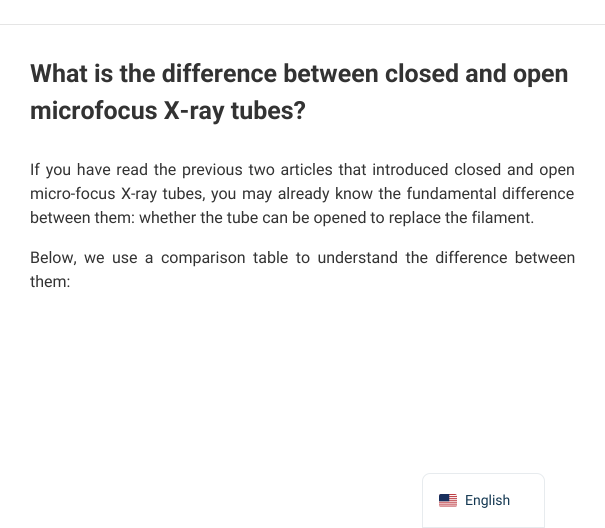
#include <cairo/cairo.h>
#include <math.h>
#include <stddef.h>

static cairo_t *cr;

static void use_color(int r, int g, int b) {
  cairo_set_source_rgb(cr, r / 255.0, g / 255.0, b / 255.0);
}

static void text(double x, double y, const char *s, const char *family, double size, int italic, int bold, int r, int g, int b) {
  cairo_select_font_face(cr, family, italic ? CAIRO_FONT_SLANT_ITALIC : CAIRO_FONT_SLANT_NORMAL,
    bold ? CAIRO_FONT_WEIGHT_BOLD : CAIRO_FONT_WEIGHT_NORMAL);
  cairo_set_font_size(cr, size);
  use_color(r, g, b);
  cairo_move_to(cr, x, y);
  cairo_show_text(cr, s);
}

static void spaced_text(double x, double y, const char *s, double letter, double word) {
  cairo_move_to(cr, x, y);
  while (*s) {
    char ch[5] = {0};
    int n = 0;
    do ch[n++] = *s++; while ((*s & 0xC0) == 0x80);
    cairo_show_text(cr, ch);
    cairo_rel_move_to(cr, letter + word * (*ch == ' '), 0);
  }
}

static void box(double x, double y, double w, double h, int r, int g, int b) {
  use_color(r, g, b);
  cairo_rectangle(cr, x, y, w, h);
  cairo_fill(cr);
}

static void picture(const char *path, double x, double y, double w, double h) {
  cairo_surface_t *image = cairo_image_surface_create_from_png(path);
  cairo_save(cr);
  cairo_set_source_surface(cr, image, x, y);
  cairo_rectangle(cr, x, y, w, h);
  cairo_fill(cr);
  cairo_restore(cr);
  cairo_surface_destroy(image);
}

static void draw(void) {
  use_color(255, 255, 255);
  cairo_paint(cr);
  box(0, 24, 605, 1, 229, 229, 229);
  cairo_new_path(cr);
  cairo_move_to(cr, 430, 473.5);
  cairo_line_to(cr, 537, 473.5);
  cairo_curve_to(cr, 541, 473.5, 544.5, 477, 544.5, 481);
  cairo_line_to(cr, 544.5, 527.5);
  cairo_line_to(cr, 422.5, 527.5);
  cairo_line_to(cr, 422.5, 481);
  cairo_curve_to(cr, 422.5, 477, 426, 473.5, 430, 473.5);
  cairo_close_path(cr);
  use_color(231, 235, 238);
  cairo_set_line_width(cr, 1);
  cairo_stroke(cr);
  picture("img_01.png", 439, 494, 18, 13);
  text(30, 82, "What is the difference between closed and open", "Roboto", 25, 0, 1, 51, 51, 51);
  text(30, 119, "microfocus X-ray tubes?", "Roboto", 25, 0, 1, 51, 51, 51);
  cairo_select_font_face(cr, "Roboto", CAIRO_FONT_SLANT_NORMAL, CAIRO_FONT_WEIGHT_NORMAL);
  cairo_set_font_size(cr, 16);
  spaced_text(30, 175, "If you have read the previous two articles that introduced closed and open", 0, 1.75);
  spaced_text(30, 199, "micro-focus X-ray tubes, you may already know the fundamental difference", 0, 1.5);
  text(30, 223, "between them: whether the tube can be opened to replace the filament.", "Roboto", 16, 0, 0, 51, 51, 51);
  spaced_text(30, 263, "Below, we use a comparison table to understand the difference between", 0, 3.4);
  text(30, 287, "them:", "Roboto", 16, 0, 0, 51, 51, 51);
  text(465, 505, "English", "Roboto", 14, 0, 0, 20, 56, 82);
}

int main(void) {
  cairo_surface_t *surface = cairo_image_surface_create(CAIRO_FORMAT_RGB24, 605, 528);
  cr = cairo_create(surface);
  cairo_font_options_t *options = cairo_font_options_create();
  cairo_font_options_set_hint_metrics(options, CAIRO_HINT_METRICS_OFF);
  cairo_font_options_set_hint_style(options, CAIRO_HINT_STYLE_NONE);
  cairo_set_font_options(cr, options);
  cairo_set_miter_limit(cr, 4);
  draw();
  cairo_surface_write_to_png(surface, "out.png");
  cairo_font_options_destroy(options);
  cairo_destroy(cr);
  cairo_surface_destroy(surface);
  return 0;
}
